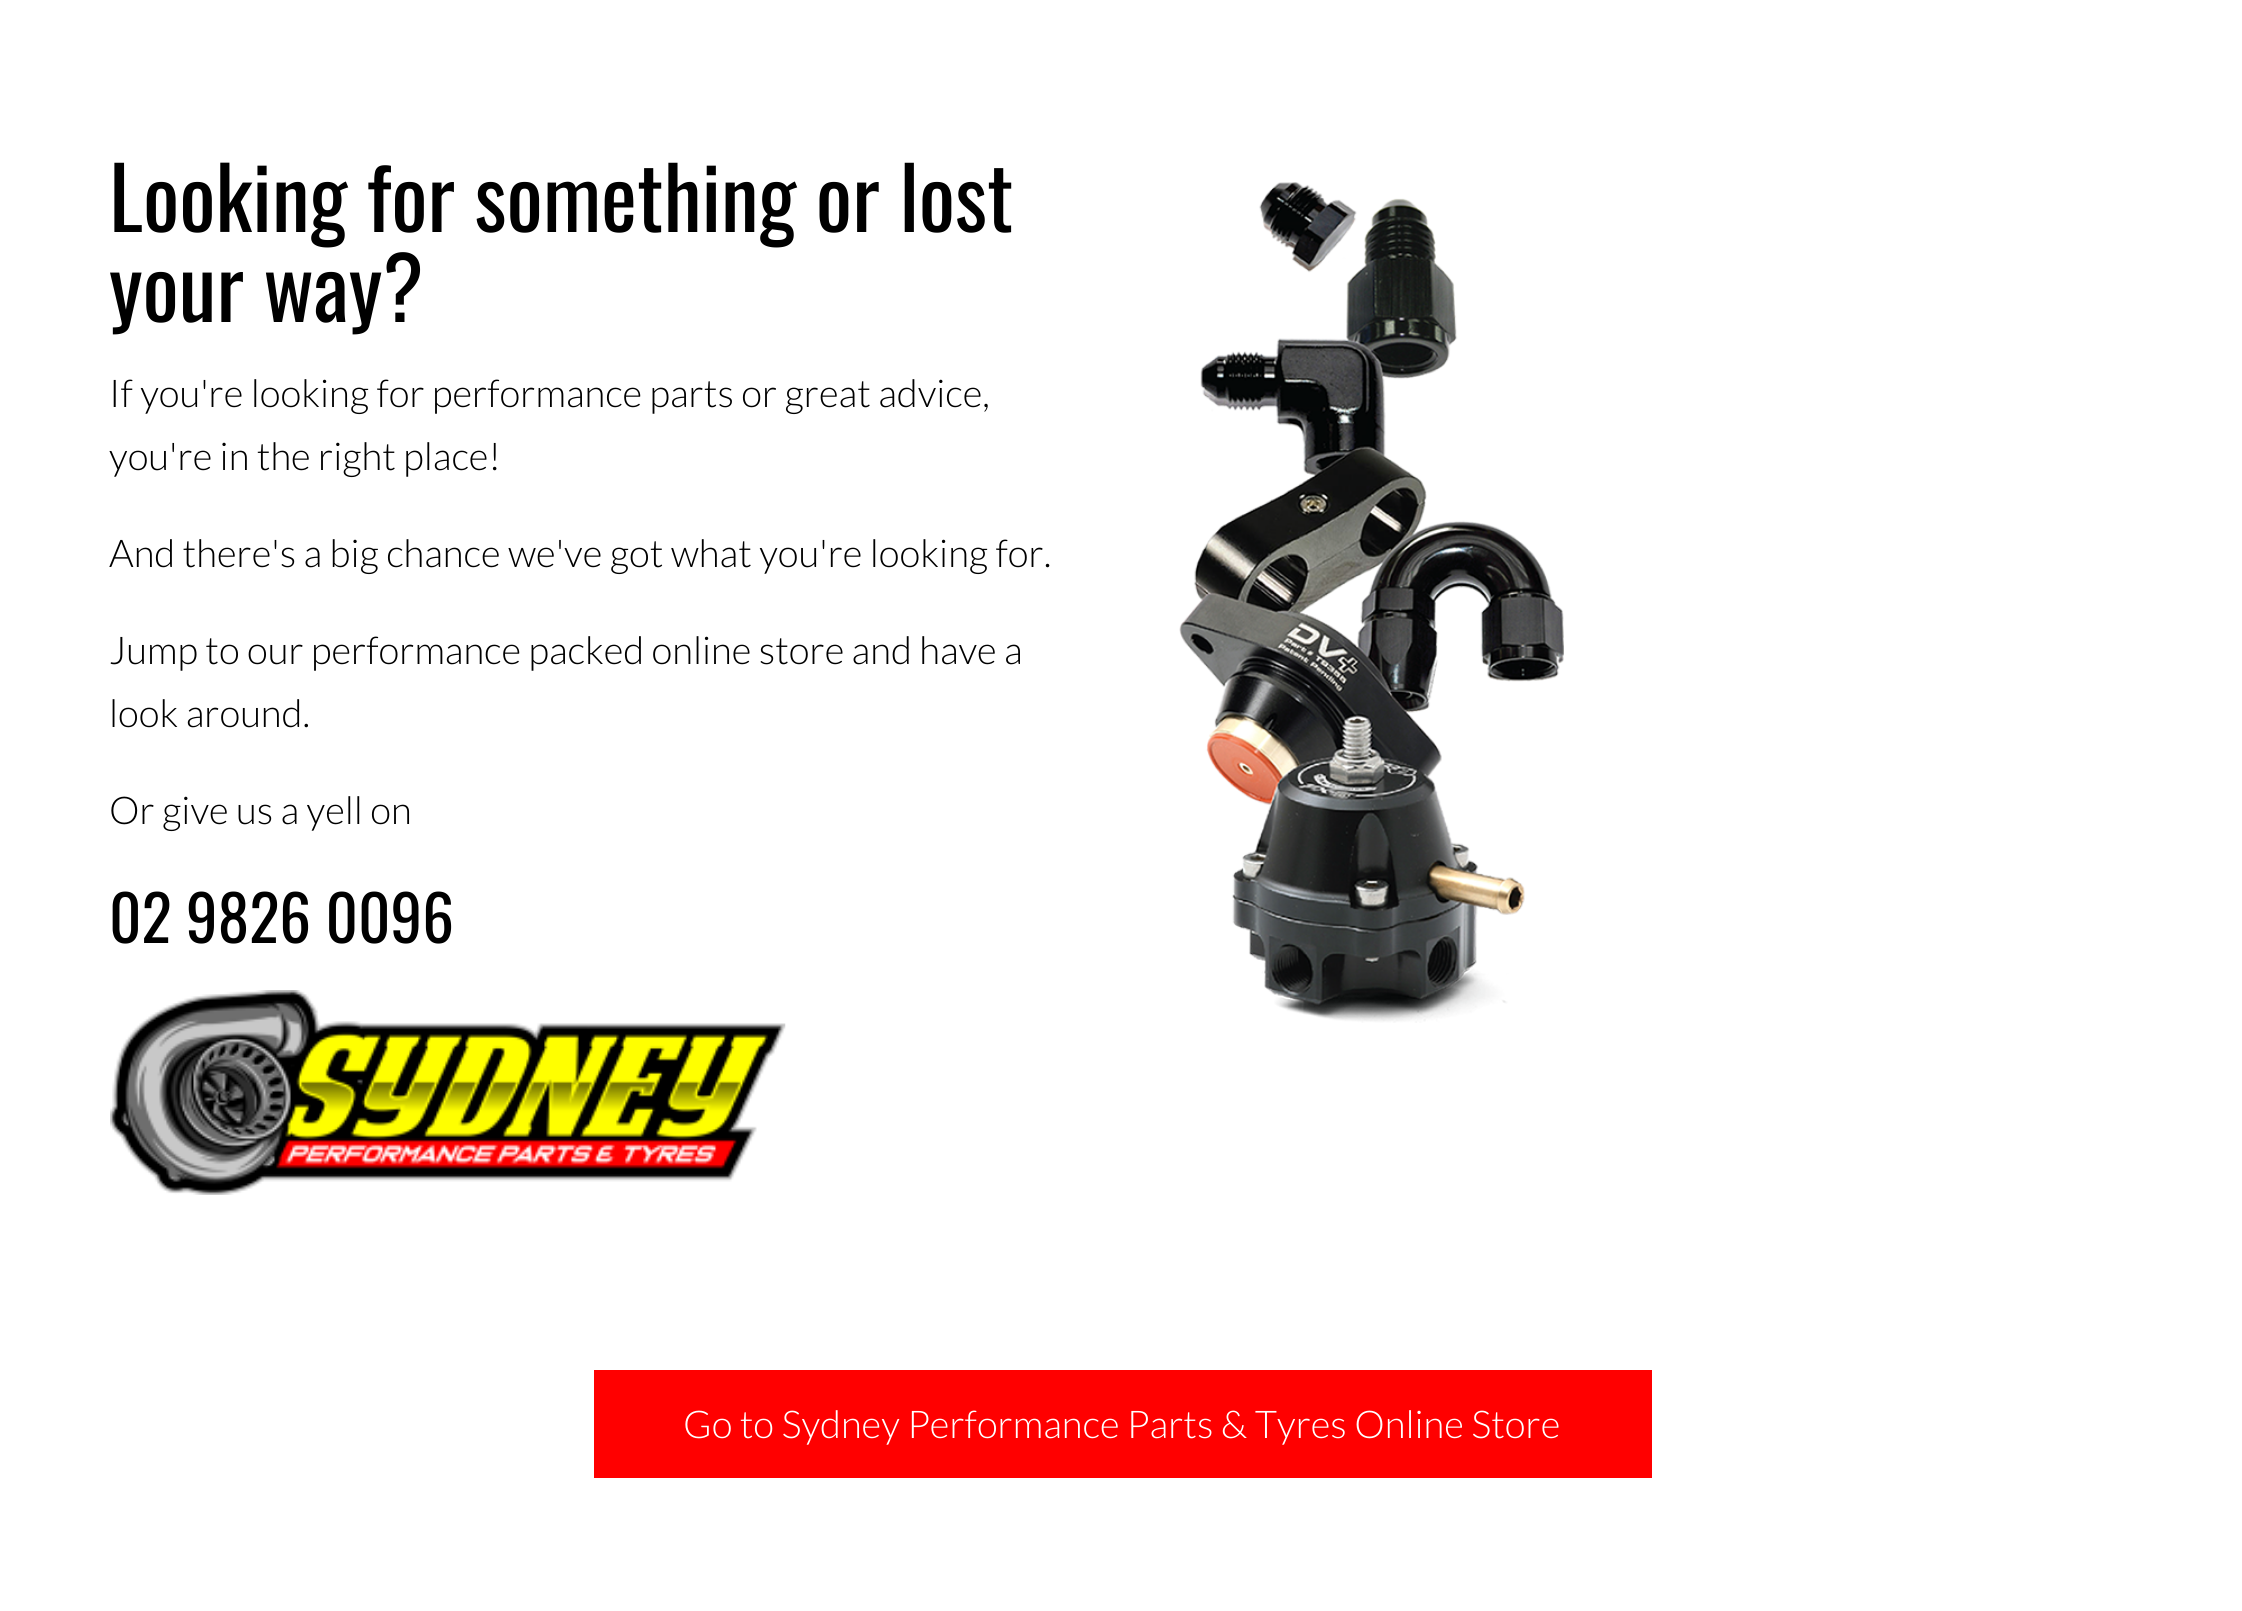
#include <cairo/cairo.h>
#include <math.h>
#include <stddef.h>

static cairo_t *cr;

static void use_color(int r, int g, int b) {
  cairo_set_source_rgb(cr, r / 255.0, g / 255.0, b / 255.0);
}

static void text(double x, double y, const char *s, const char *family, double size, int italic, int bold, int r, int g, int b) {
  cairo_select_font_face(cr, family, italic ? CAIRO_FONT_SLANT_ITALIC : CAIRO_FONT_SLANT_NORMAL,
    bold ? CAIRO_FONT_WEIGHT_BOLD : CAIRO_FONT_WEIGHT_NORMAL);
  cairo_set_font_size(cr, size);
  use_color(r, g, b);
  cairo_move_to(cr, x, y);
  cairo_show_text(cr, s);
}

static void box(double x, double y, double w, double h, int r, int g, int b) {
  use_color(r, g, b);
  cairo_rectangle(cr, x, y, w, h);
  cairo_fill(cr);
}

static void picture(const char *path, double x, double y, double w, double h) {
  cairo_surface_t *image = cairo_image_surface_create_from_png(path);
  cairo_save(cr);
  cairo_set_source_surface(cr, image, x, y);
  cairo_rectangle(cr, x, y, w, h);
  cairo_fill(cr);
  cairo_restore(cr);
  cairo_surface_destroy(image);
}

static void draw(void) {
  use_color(255, 255, 255);
  cairo_paint(cr);
  picture("img_01.png", 110, 990, 676, 205);
  picture("img_02.png", 1179, 182, 385, 841);
  box(594, 1370, 1058, 108, 255, 0, 0);
  text(109, 232, "Looking for something or lost", "Oswald", 85.5, 0, 0, 0, 0, 0);
  text(109, 322, "your way?", "Oswald", 85.5, 0, 0, 0, 0, 0);
  text(109, 407, "If you're looking for performance parts or great advice,", "Lato Light", 38.25, 0, 0, 0, 0, 0);
  text(109, 470, "you're in the right place!", "Lato Light", 38.25, 0, 0, 0, 0, 0);
  text(109, 567, "And there's a big chance we've got what you're looking for.", "Lato Light", 38.25, 0, 0, 0, 0, 0);
  text(109, 664, "Jump to our performance packed online store and have a", "Lato Light", 38.25, 0, 0, 0, 0, 0);
  text(109, 727, "look around.", "Lato Light", 38.25, 0, 0, 0, 0, 0);
  text(109, 824, "Or give us a yell on", "Lato Light", 38.25, 0, 0, 0, 0, 0);
  text(109, 943, "02 9826 0096", "Oswald", 63, 0, 0, 0, 0, 0);
  text(683, 1438, "Go to Sydney Performance Parts & Tyres Online Store", "Lato Light", 38.25, 0, 0, 255, 255, 255);
}

int main(void) {
  cairo_surface_t *surface = cairo_image_surface_create(CAIRO_FORMAT_RGB24, 2242, 1611);
  cr = cairo_create(surface);
  cairo_font_options_t *options = cairo_font_options_create();
  cairo_font_options_set_hint_metrics(options, CAIRO_HINT_METRICS_OFF);
  cairo_font_options_set_hint_style(options, CAIRO_HINT_STYLE_NONE);
  cairo_set_font_options(cr, options);
  cairo_set_miter_limit(cr, 4);
  draw();
  cairo_surface_write_to_png(surface, "out.png");
  cairo_font_options_destroy(options);
  cairo_destroy(cr);
  cairo_surface_destroy(surface);
  return 0;
}
